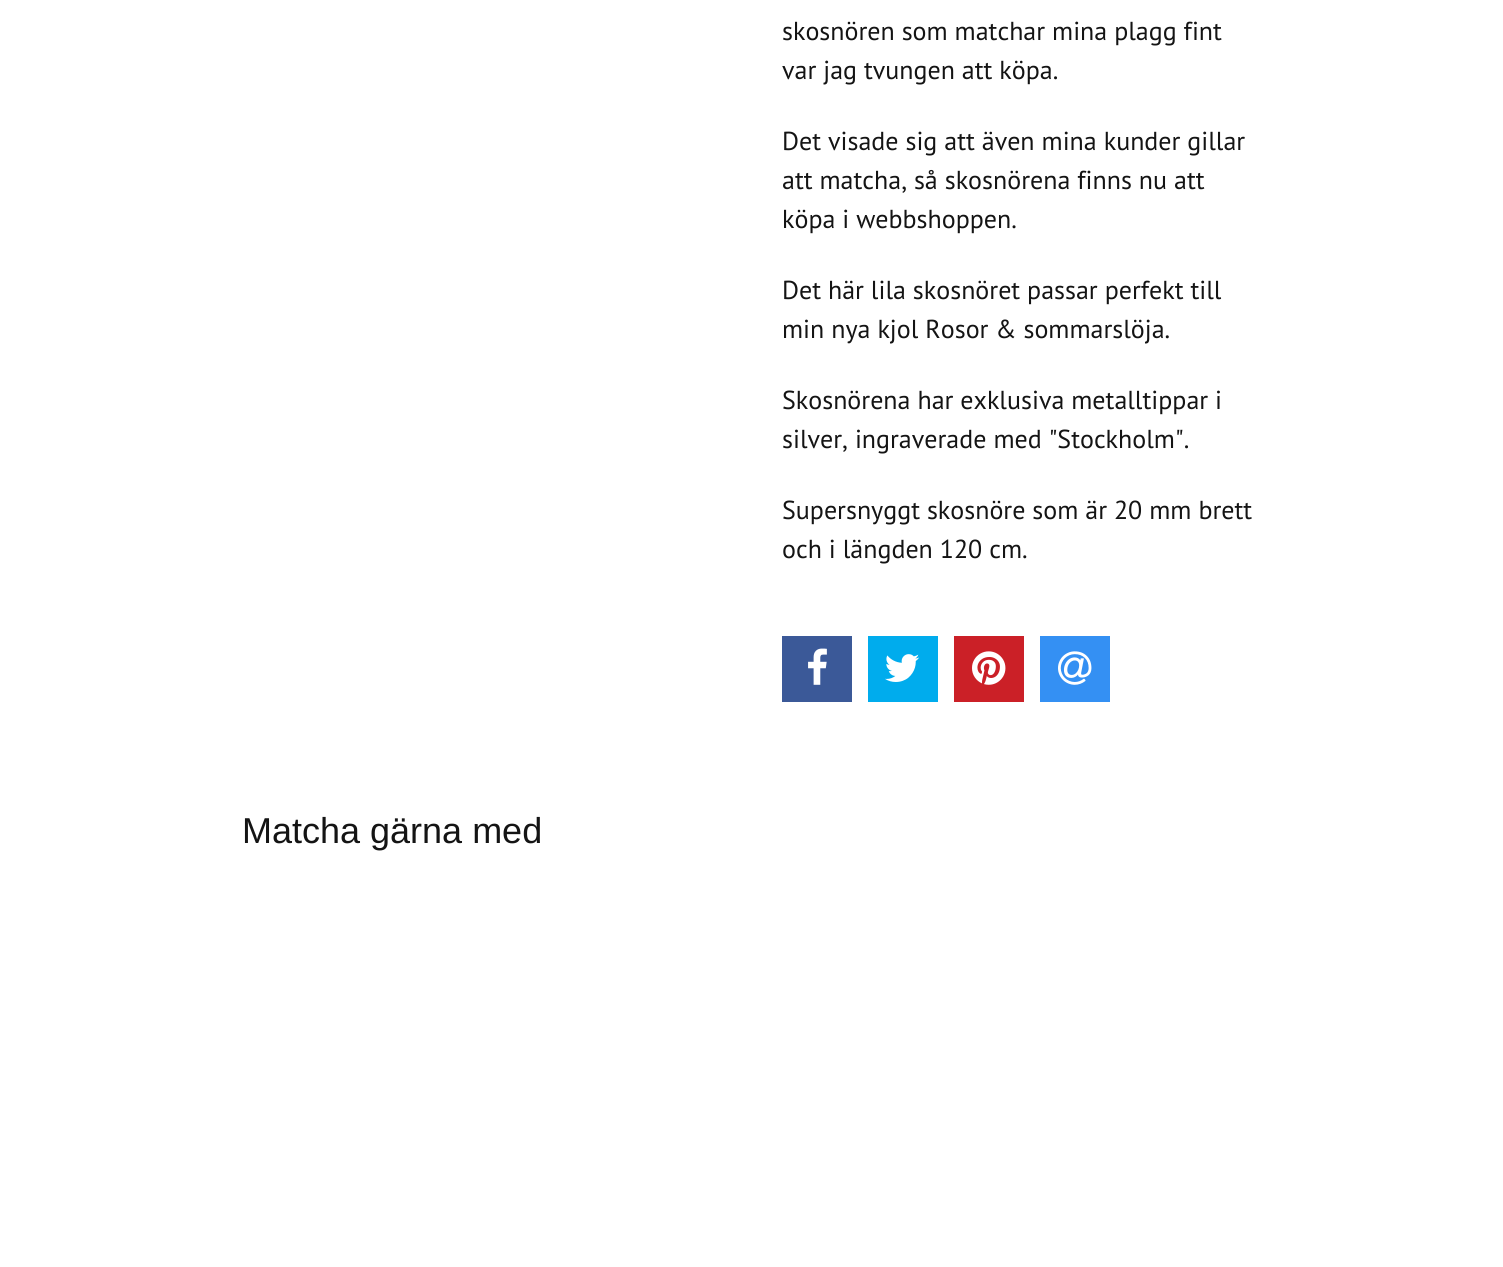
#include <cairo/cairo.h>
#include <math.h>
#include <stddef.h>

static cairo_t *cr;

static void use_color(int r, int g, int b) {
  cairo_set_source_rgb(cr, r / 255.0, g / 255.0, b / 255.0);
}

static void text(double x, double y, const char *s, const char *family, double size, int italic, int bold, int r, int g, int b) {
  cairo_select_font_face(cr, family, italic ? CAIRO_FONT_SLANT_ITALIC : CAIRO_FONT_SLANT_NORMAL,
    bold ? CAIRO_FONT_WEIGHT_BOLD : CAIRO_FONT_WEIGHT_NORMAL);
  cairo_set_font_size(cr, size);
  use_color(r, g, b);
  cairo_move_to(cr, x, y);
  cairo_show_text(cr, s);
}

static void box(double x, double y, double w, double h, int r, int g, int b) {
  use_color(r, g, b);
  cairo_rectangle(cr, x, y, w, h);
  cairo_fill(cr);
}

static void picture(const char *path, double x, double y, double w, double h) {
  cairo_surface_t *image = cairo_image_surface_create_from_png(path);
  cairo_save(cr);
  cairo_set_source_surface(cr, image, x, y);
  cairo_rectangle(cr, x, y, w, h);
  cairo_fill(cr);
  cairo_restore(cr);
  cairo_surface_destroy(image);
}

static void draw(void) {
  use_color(255, 255, 255);
  cairo_paint(cr);
  box(782, 636, 70, 66, 59, 89, 152);
  picture("img_01.png", 808, 648, 19, 37);
  box(868, 636, 70, 66, 0, 172, 237);
  picture("img_02.png", 885, 654, 35, 28);
  box(954, 636, 70, 66, 203, 32, 39);
  picture("img_03.png", 972, 651, 34, 34);
  box(1040, 636, 70, 66, 52, 144, 243);
  picture("img_04.png", 1058, 651, 34, 34);
  text(782, 40, "skosnören som matchar mina plagg fint", "PT Sans", 26, 0, 0, 20, 20, 20);
  text(782, 79, "var jag tvungen att köpa.", "PT Sans", 26, 0, 0, 20, 20, 20);
  text(782, 150, "Det visade sig att även mina kunder gillar", "PT Sans", 26, 0, 0, 20, 20, 20);
  text(782, 189, "att matcha, så skosnörena finns nu att", "PT Sans", 26, 0, 0, 20, 20, 20);
  text(782, 228, "köpa i webbshoppen.", "PT Sans", 26, 0, 0, 20, 20, 20);
  text(782, 299, "Det här lila skosnöret passar perfekt till", "PT Sans", 26, 0, 0, 20, 20, 20);
  text(782, 338, "min nya kjol Rosor & sommarslöja.", "PT Sans", 26, 0, 0, 20, 20, 20);
  text(782, 409, "Skosnörena har exklusiva metalltippar i", "PT Sans", 26, 0, 0, 20, 20, 20);
  text(782, 448, "silver, ingraverade med \"Stockholm\".", "PT Sans", 26, 0, 0, 20, 20, 20);
  text(782, 519, "Supersnyggt skosnöre som är 20 mm brett", "PT Sans", 26, 0, 0, 20, 20, 20);
  text(782, 558, "och i längden 120 cm.", "PT Sans", 26, 0, 0, 20, 20, 20);
  text(242, 843, "Matcha gärna med", "Liberation Sans", 36, 0, 0, 20, 20, 20);
}

int main(void) {
  cairo_surface_t *surface = cairo_image_surface_create(CAIRO_FORMAT_RGB24, 1503, 1267);
  cr = cairo_create(surface);
  cairo_font_options_t *options = cairo_font_options_create();
  cairo_font_options_set_hint_metrics(options, CAIRO_HINT_METRICS_OFF);
  cairo_font_options_set_hint_style(options, CAIRO_HINT_STYLE_NONE);
  cairo_set_font_options(cr, options);
  cairo_set_miter_limit(cr, 4);
  draw();
  cairo_surface_write_to_png(surface, "out.png");
  cairo_font_options_destroy(options);
  cairo_destroy(cr);
  cairo_surface_destroy(surface);
  return 0;
}
